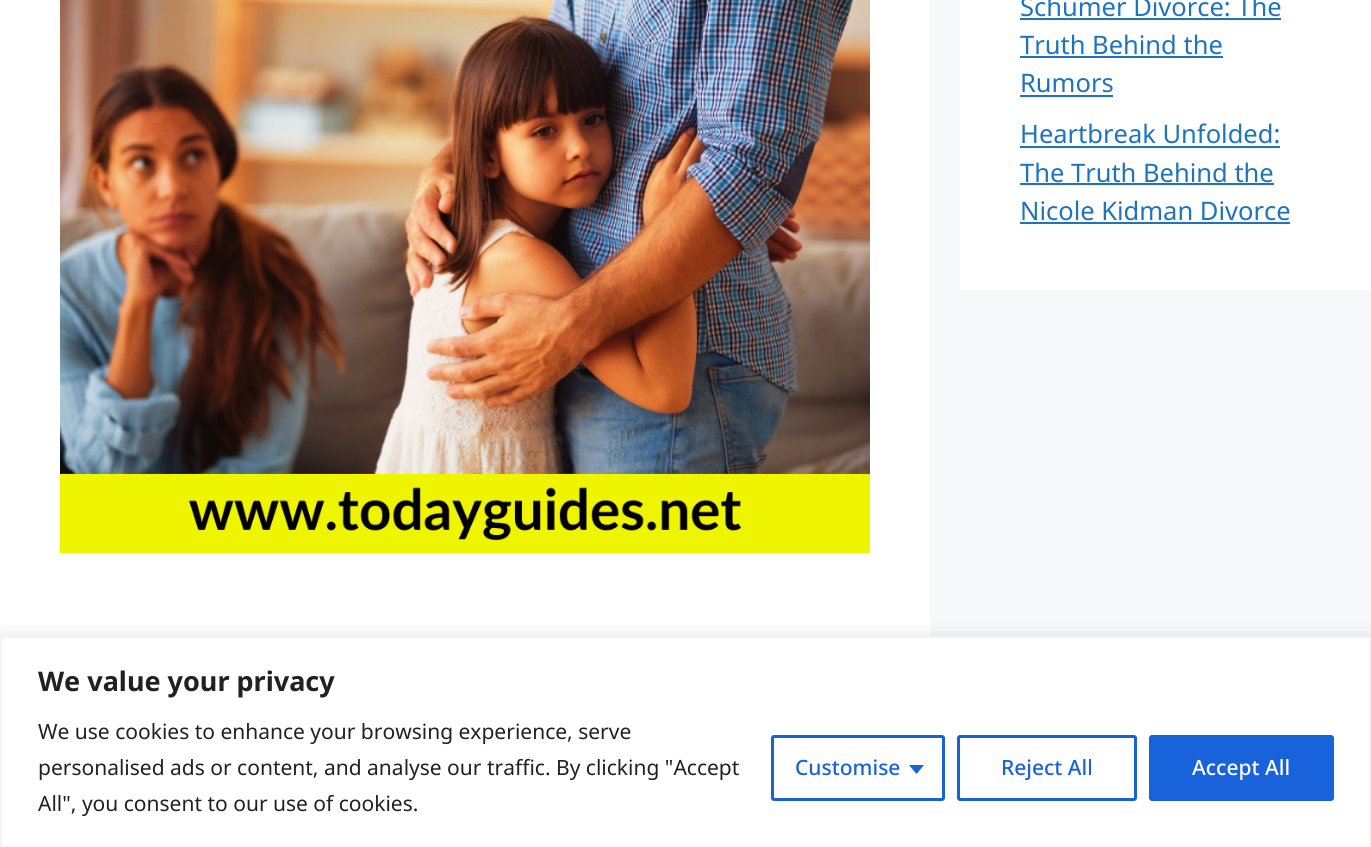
#include <cairo/cairo.h>
#include <math.h>
#include <stddef.h>

static cairo_t *cr;

static void use_color(int r, int g, int b) {
  cairo_set_source_rgb(cr, r / 255.0, g / 255.0, b / 255.0);
}

static void text(double x, double y, const char *s, const char *family, double size, int italic, int bold, int r, int g, int b) {
  cairo_select_font_face(cr, family, italic ? CAIRO_FONT_SLANT_ITALIC : CAIRO_FONT_SLANT_NORMAL,
    bold ? CAIRO_FONT_WEIGHT_BOLD : CAIRO_FONT_WEIGHT_NORMAL);
  cairo_set_font_size(cr, size);
  use_color(r, g, b);
  cairo_move_to(cr, x, y);
  cairo_show_text(cr, s);
}

static void box(double x, double y, double w, double h, int r, int g, int b) {
  use_color(r, g, b);
  cairo_rectangle(cr, x, y, w, h);
  cairo_fill(cr);
}

static void round_rect(double x, double y, double w, double h, double r) {
  cairo_new_sub_path(cr);
  cairo_arc(cr, x + w - r, y + h - r, r, 0, M_PI / 2);
  cairo_arc(cr, x + r, y + h - r, r, M_PI / 2, M_PI);
  cairo_arc(cr, x + r, y + r, r, M_PI, 1.5 * M_PI);
  cairo_arc(cr, x + w - r, y + r, r, 1.5 * M_PI, 2 * M_PI);
  cairo_close_path(cr);
}

static void shadow(double x, double y, double w, double h, double r, double blur, double alpha) {
  cairo_push_group_with_content(cr, CAIRO_CONTENT_ALPHA);
  cairo_set_operator(cr, CAIRO_OPERATOR_SOURCE);
  for (int i = 15; i >= -15 && fmin(w, h) + blur * i / 3 > 0; i -= 2) {
    double e = blur * i / 6;
    cairo_set_source_rgba(cr, 0, 0, 0, alpha * erfc((i - 1) / 8.5) / 2);
    round_rect(x - e, y - e, w + 2 * e, h + 2 * e, fmax(0, fmin(r + e + blur * .6, fmin(w, h) / 2 + e)));
    cairo_fill(cr);
  }
  cairo_pattern_t *soft = cairo_pop_group(cr);
  cairo_mask(cr, soft);
  cairo_pattern_destroy(soft);
}

static void picture(const char *path, double x, double y, double w, double h) {
  cairo_surface_t *image = cairo_image_surface_create_from_png(path);
  cairo_save(cr);
  cairo_set_source_surface(cr, image, x, y);
  cairo_rectangle(cr, x, y, w, h);
  cairo_fill(cr);
  cairo_restore(cr);
  cairo_surface_destroy(image);
}

static void draw(void) {
  use_color(247, 248, 249);
  cairo_paint(cr);
  box(0, 0, 930, 636, 255, 255, 255);
  picture("img_01.png", 60, 0, 810, 553);
  box(960, 0, 411, 290, 255, 255, 255);
  box(1020, 18, 261, 2, 30, 115, 190);
  box(1020, 56, 203, 2, 30, 115, 190);
  box(1020, 95, 93, 2, 30, 115, 190);
  box(1020, 146, 260, 2, 30, 115, 190);
  box(1020, 183, 254, 2, 30, 115, 190);
  box(1020, 222, 270, 2, 30, 115, 190);
  use_color(172, 171, 171);
  shadow(0, 635, 1371, 211, 0, 7.5, 0.3);
  use_color(255, 255, 255);
  cairo_rectangle(cr, 1, 637, 1369, 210);
  cairo_fill_preserve(cr);
  use_color(244, 244, 244);
  cairo_stroke(cr);
  round_rect(772.5, 736.5, 171, 63, 1.5);
  use_color(24, 99, 220);
  cairo_set_line_width(cr, 3);
  cairo_stroke(cr);
  cairo_new_path(cr);
  cairo_move_to(cr, 909, 765);
  cairo_line_to(cr, 924, 765);
  cairo_line_to(cr, 916.5, 774);
  cairo_close_path(cr);
  cairo_fill(cr);
  round_rect(958.5, 736.5, 177, 63, 1.5);
  cairo_stroke(cr);
  round_rect(1150.5, 736.5, 182, 63, 1.5);
  cairo_fill_preserve(cr);
  cairo_stroke(cr);
  text(1020, 16, "Schumer Divorce: The", "Noto Sans", 25.5, 0, 0, 30, 115, 190);
  text(1020, 54, "Truth Behind the", "Noto Sans", 25.5, 0, 0, 30, 115, 190);
  text(1020, 92, "Rumors", "Noto Sans", 25.5, 0, 0, 30, 115, 190);
  text(1020, 143, "Heartbreak Unfolded:", "Noto Sans", 25.5, 0, 0, 30, 115, 190);
  text(1020, 182, "The Truth Behind the", "Noto Sans", 25.5, 0, 0, 30, 115, 190);
  text(1020, 220, "Nicole Kidman Divorce", "Noto Sans", 25.5, 0, 0, 30, 115, 190);
  text(38, 691, "We value your privacy", "Noto Sans", 27, 0, 1, 33, 33, 33);
  text(38, 739, "We use cookies to enhance your browsing experience, serve", "Noto Sans", 21, 0, 0, 33, 33, 33);
  text(38, 775, "personalised ads or content, and analyse our traffic. By clicking \"Accept", "Noto Sans", 21, 0, 0, 33, 33, 33);
  text(38, 811, "All\", you consent to our use of cookies.", "Noto Sans", 21, 0, 0, 33, 33, 33);
  text(795, 775, "Customise", "Noto Sans Medium", 21, 0, 0, 24, 99, 220);
  text(1001, 775, "Reject All", "Noto Sans Medium", 21, 0, 0, 24, 99, 220);
  text(1192, 775, "Accept All", "Noto Sans Medium", 21, 0, 0, 255, 255, 255);
}

int main(void) {
  cairo_surface_t *surface = cairo_image_surface_create(CAIRO_FORMAT_RGB24, 1371, 847);
  cr = cairo_create(surface);
  cairo_font_options_t *options = cairo_font_options_create();
  cairo_font_options_set_hint_metrics(options, CAIRO_HINT_METRICS_OFF);
  cairo_font_options_set_hint_style(options, CAIRO_HINT_STYLE_NONE);
  cairo_set_font_options(cr, options);
  cairo_set_miter_limit(cr, 4);
  draw();
  cairo_surface_write_to_png(surface, "out.png");
  cairo_font_options_destroy(options);
  cairo_destroy(cr);
  cairo_surface_destroy(surface);
  return 0;
}
